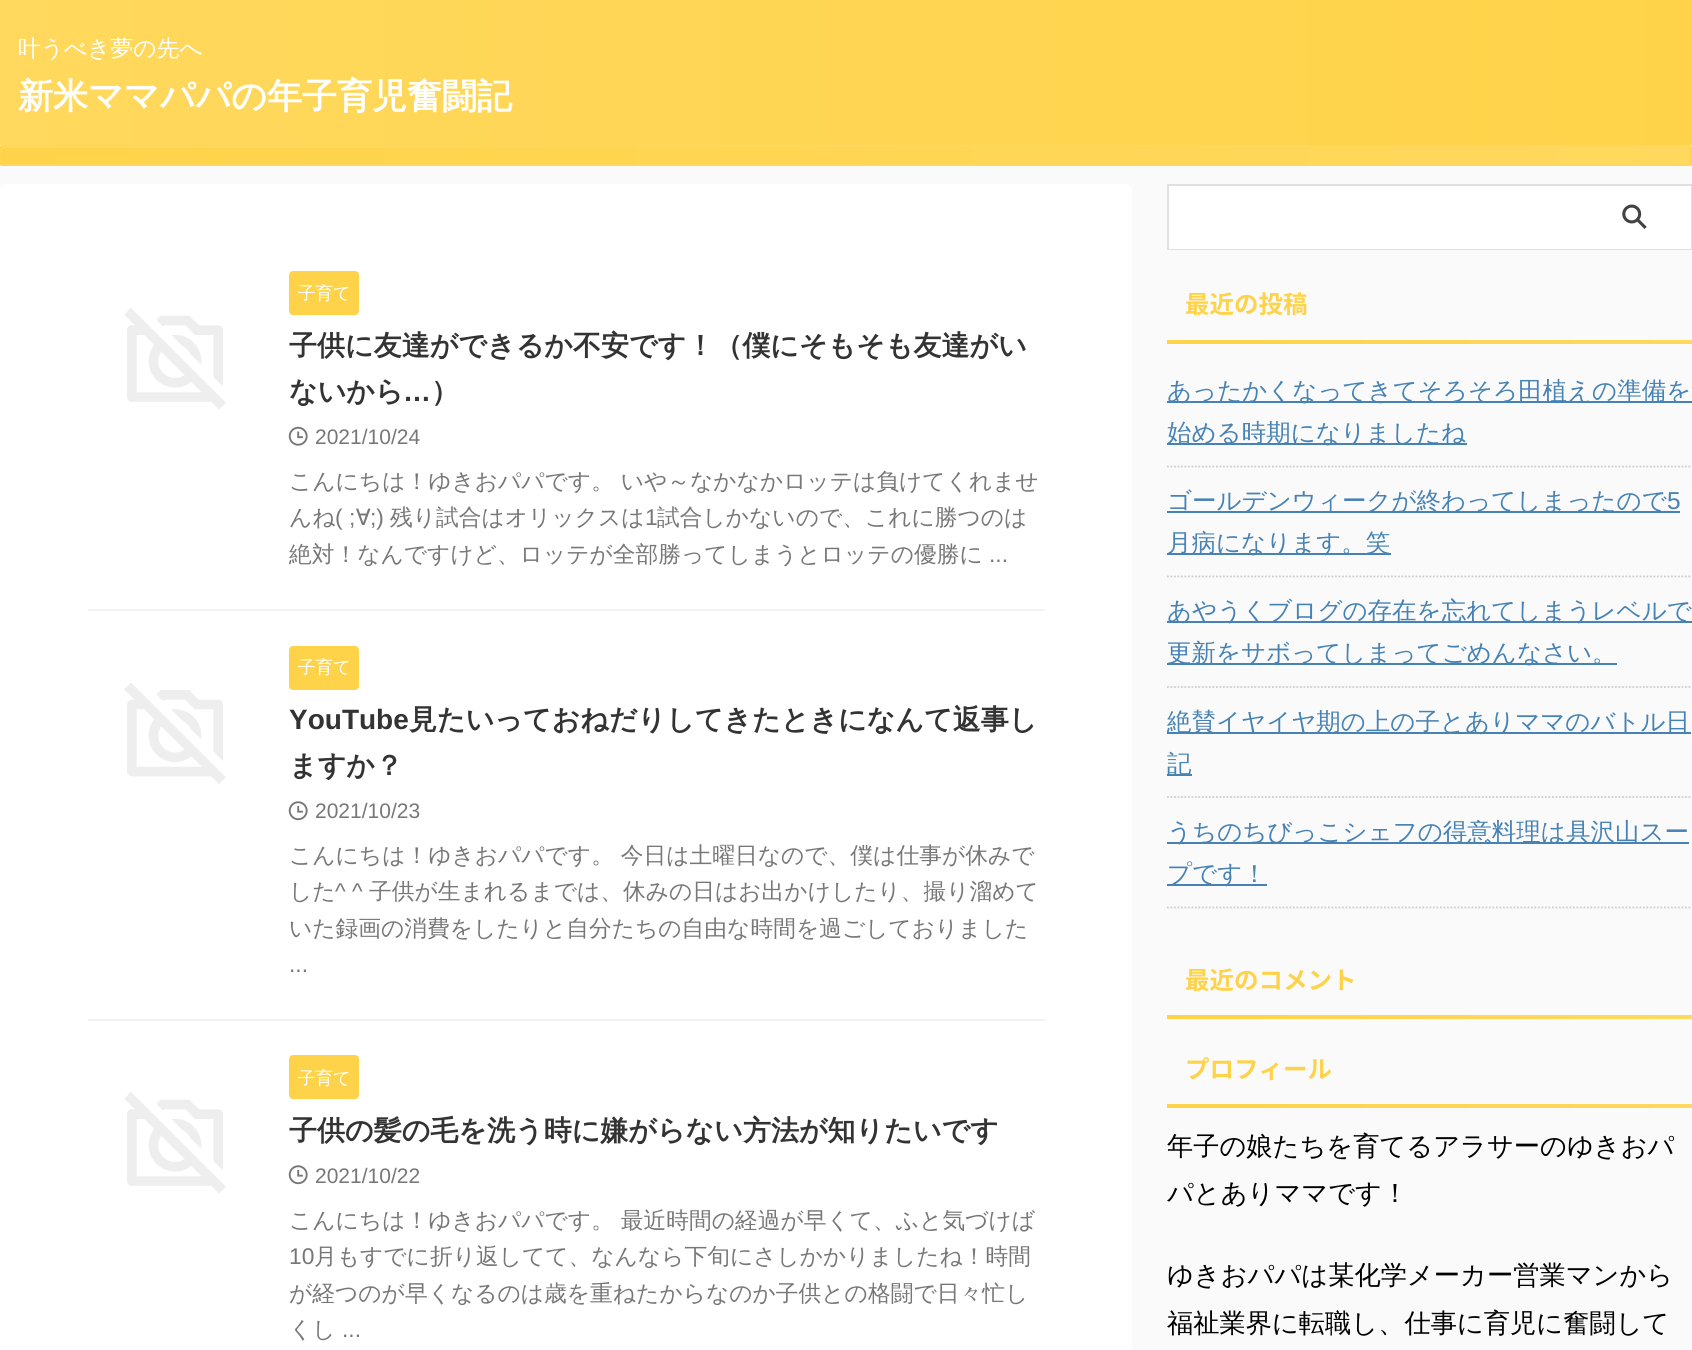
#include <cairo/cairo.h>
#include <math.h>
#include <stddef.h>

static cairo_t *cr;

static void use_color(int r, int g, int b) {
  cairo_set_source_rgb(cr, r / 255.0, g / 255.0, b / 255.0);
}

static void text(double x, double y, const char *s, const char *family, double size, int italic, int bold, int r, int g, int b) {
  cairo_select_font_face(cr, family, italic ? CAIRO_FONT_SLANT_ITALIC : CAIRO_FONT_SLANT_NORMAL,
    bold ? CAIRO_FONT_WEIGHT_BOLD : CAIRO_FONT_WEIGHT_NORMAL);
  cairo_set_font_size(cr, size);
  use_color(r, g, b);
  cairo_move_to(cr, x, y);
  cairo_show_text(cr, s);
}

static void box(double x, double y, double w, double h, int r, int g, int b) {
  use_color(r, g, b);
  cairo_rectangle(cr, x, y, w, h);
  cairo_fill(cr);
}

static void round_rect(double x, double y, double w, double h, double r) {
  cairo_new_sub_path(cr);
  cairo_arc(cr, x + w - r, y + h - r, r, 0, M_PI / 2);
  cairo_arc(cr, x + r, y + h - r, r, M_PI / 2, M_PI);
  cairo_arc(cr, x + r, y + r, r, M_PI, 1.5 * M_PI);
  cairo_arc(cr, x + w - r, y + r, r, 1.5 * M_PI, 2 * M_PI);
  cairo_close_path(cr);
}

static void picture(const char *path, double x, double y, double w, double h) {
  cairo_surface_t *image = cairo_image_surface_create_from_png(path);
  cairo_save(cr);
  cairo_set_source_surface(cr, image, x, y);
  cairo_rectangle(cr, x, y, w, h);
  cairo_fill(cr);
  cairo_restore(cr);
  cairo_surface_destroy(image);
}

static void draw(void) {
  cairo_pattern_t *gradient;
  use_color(250, 250, 250);
  cairo_paint(cr);
  gradient = cairo_pattern_create_linear(1692, 73, 0, 73);
  cairo_pattern_add_color_stop_rgba(gradient, 0, 1, 0.827, 0.286, 1);
  cairo_pattern_add_color_stop_rgba(gradient, 1, 1, 0.847, 0.365, 1);
  cairo_set_source(cr, gradient);
  cairo_pattern_destroy(gradient);
  cairo_rectangle(cr, 0, 0, 1692, 145);
  cairo_fill(cr);
  gradient = cairo_pattern_create_linear(1.8, 156, -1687, 156);
  cairo_pattern_add_color_stop_rgba(gradient, 0, 1, 0.847, 0.365, 1);
  cairo_pattern_add_color_stop_rgba(gradient, 1, 1, 0.827, 0.286, 1);
  cairo_set_source(cr, gradient);
  cairo_pattern_destroy(gradient);
  cairo_new_path(cr);
  cairo_move_to(cr, 2, 145);
  cairo_line_to(cr, 2, 166);
  cairo_curve_to(cr, 1, 166, 0, 165, 0, 164);
  cairo_line_to(cr, 0, 147);
  cairo_curve_to(cr, 0, 146, 1, 145, 2, 145);
  cairo_close_path(cr);
  cairo_fill(cr);
  gradient = cairo_pattern_create_linear(1691, 156, 1.8, 156);
  cairo_pattern_add_color_stop_rgba(gradient, 0, 1, 0.847, 0.365, 1);
  cairo_pattern_add_color_stop_rgba(gradient, 1, 1, 0.827, 0.286, 1);
  cairo_set_source(cr, gradient);
  cairo_pattern_destroy(gradient);
  cairo_rectangle(cr, 2, 145, 1689, 21);
  cairo_fill(cr);
  cairo_new_path(cr);
  cairo_move_to(cr, 1, 146.5);
  cairo_line_to(cr, 1691, 146.5);
  use_color(255, 216, 93);
  cairo_set_line_width(cr, 1.8);
  cairo_stroke(cr);
  cairo_new_path(cr);
  cairo_move_to(cr, 1691, 146.5);
  cairo_curve_to(cr, 1691.5, 147, 1691.5, 164.5, 1691, 165);
  use_color(255, 211, 73);
  cairo_stroke(cr);
  cairo_set_source_rgba(cr, 1, 0.847, 0.365, 0.9);
  cairo_rectangle(cr, 1, 164, 1690, 2);
  cairo_fill(cr);
  cairo_new_path(cr);
  cairo_move_to(cr, 1, 165);
  cairo_curve_to(cr, 0.5, 164.5, 0.5, 147, 1, 146.5);
  use_color(255, 211, 73);
  cairo_stroke(cr);
  use_color(255, 255, 255);
  round_rect(0, 184, 1132, 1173, 7);
  cairo_fill(cr);
  box(88, 609, 957, 2, 243, 243, 243);
  picture("img_01.png", 124, 308, 102, 101);
  use_color(255, 211, 73);
  round_rect(289, 271, 70, 44, 4);
  cairo_fill(cr);
  picture("img_02.png", 288, 426, 20, 20);
  box(88, 1019, 957, 2, 243, 243, 243);
  picture("img_03.png", 124, 683, 102, 101);
  use_color(255, 211, 73);
  round_rect(289, 646, 70, 44, 4);
  cairo_fill(cr);
  picture("img_04.png", 288, 801, 20, 20);
  picture("img_05.png", 124, 1092, 102, 101);
  round_rect(289, 1055, 70, 44, 4);
  cairo_fill(cr);
  picture("img_04.png", 288, 1165, 20, 20);
  cairo_rectangle(cr, 1168, 185, 523, 64);
  use_color(224, 224, 224);
  cairo_set_line_width(cr, 2);
  cairo_stroke(cr);
  box(1169, 186, 522, 63, 255, 255, 255);
  picture("img_06.png", 1622, 204, 25, 25);
  gradient = cairo_pattern_create_linear(1692, 341, 1167, 341);
  cairo_pattern_add_color_stop_rgba(gradient, 0, 1, 0.847, 0.365, 1);
  cairo_pattern_add_color_stop_rgba(gradient, 1, 1, 0.827, 0.286, 1);
  cairo_set_source(cr, gradient);
  cairo_pattern_destroy(gradient);
  cairo_rectangle(cr, 1167, 340, 525, 4);
  cairo_fill(cr);
  cairo_new_path(cr);
  cairo_move_to(cr, 1167, 466.5);
  cairo_line_to(cr, 1692, 466.5);
  use_color(204, 204, 204);
  cairo_set_line_width(cr, 1.8);
  cairo_set_dash(cr, (double[]){1.75, 1.75}, 2, 0);
  cairo_stroke(cr);
  box(1167, 401, 525, 2, 70, 130, 180);
  box(1167, 443, 300, 2, 70, 130, 180);
  cairo_new_path(cr);
  cairo_move_to(cr, 1167, 576.5);
  cairo_line_to(cr, 1692, 576.5);
  use_color(204, 204, 204);
  cairo_stroke(cr);
  box(1167, 511, 513, 2, 70, 130, 180);
  box(1167, 553, 224, 2, 70, 130, 180);
  cairo_new_path(cr);
  cairo_move_to(cr, 1167, 687);
  cairo_line_to(cr, 1692, 687);
  use_color(204, 204, 204);
  cairo_stroke(cr);
  box(1167, 621, 525, 2, 70, 130, 180);
  box(1167, 663, 450, 2, 70, 130, 180);
  cairo_new_path(cr);
  cairo_move_to(cr, 1167, 797);
  cairo_line_to(cr, 1692, 797);
  use_color(204, 204, 204);
  cairo_stroke(cr);
  box(1167, 732, 524, 2, 70, 130, 180);
  box(1167, 774, 25, 2, 70, 130, 180);
  cairo_new_path(cr);
  cairo_move_to(cr, 1167, 907.5);
  cairo_line_to(cr, 1692, 907.5);
  use_color(204, 204, 204);
  cairo_stroke(cr);
  box(1167, 842, 522, 2, 70, 130, 180);
  box(1167, 884, 100, 2, 70, 130, 180);
  gradient = cairo_pattern_create_linear(1692, 1017, 1167, 1017);
  cairo_pattern_add_color_stop_rgba(gradient, 0, 1, 0.847, 0.365, 1);
  cairo_pattern_add_color_stop_rgba(gradient, 1, 1, 0.827, 0.286, 1);
  cairo_set_source(cr, gradient);
  cairo_pattern_destroy(gradient);
  cairo_rectangle(cr, 1167, 1015, 525, 4);
  cairo_fill(cr);
  gradient = cairo_pattern_create_linear(1692, 1106, 1167, 1106);
  cairo_pattern_add_color_stop_rgba(gradient, 0, 1, 0.847, 0.365, 1);
  cairo_pattern_add_color_stop_rgba(gradient, 1, 1, 0.827, 0.286, 1);
  cairo_set_source(cr, gradient);
  cairo_pattern_destroy(gradient);
  cairo_rectangle(cr, 1167, 1104, 525, 4);
  cairo_fill(cr);
  text(18, 56, "叶うべき夢の先へ", "WenQuanYi Zen Hei Medium", 22.75, 0, 0, 255, 255, 255);
  text(18, 108, "新米ママパパの年子育児奮闘記", "WenQuanYi Zen Hei", 35, 0, 1, 255, 255, 255);
  text(298, 299, "子育て", "WenQuanYi Zen Hei Medium", 17.5, 0, 0, 255, 255, 255);
  text(289, 355, "子供に友達ができるか不安です！（僕にそもそも友達がい", "WenQuanYi Zen Hei", 28, 0, 1, 51, 51, 51);
  text(289, 401, "ないから", "WenQuanYi Zen Hei", 28, 0, 1, 51, 51, 51);
  text(403, 401, "…", "Liberation Sans", 28, 0, 1, 51, 51, 51);
  text(431, 401, "）", "WenQuanYi Zen Hei", 28, 0, 1, 51, 51, 51);
  text(315, 444, "2021/10/24", "Liberation Sans", 21, 0, 0, 119, 119, 119);
  text(289, 489, "こんにちは！ゆきおパパです。 いや～なかなかロッテは負けてくれませ", "WenQuanYi Zen Hei Medium", 22.75, 0, 0, 119, 119, 119);
  text(289, 525, "んね", "WenQuanYi Zen Hei Medium", 22.75, 0, 0, 119, 119, 119);
  text(335, 525, "( ;", "Liberation Sans", 22.75, 0, 0, 119, 119, 119);
  text(356, 525, "∀", "WenQuanYi Zen Hei Medium", 22.75, 0, 0, 119, 119, 119);
  text(370, 525, ";)", "Liberation Sans", 22.75, 0, 0, 119, 119, 119);
  text(390, 525, "残り試合はオリックスは", "WenQuanYi Zen Hei Medium", 22.75, 0, 0, 119, 119, 119);
  text(645, 525, "1", "Liberation Sans", 22.75, 0, 0, 119, 119, 119);
  text(657, 525, "試合しかないので、これに勝つのは", "WenQuanYi Zen Hei Medium", 22.75, 0, 0, 119, 119, 119);
  text(289, 562, "絶対！なんですけど、ロッテが全部勝ってしまうとロッテの優勝に", "WenQuanYi Zen Hei Medium", 22.75, 0, 0, 119, 119, 119);
  text(989, 562, "...", "Liberation Sans", 22.75, 0, 0, 119, 119, 119);
  text(298, 673, "子育て", "WenQuanYi Zen Hei Medium", 17.5, 0, 0, 255, 255, 255);
  text(289, 729, "YouTube", "Liberation Sans", 28, 0, 1, 51, 51, 51);
  text(409, 729, "見たいっておねだりしてきたときになんて返事し", "WenQuanYi Zen Hei", 28, 0, 1, 51, 51, 51);
  text(289, 775, "ますか？", "WenQuanYi Zen Hei", 28, 0, 1, 51, 51, 51);
  text(315, 818, "2021/10/23", "Liberation Sans", 21, 0, 0, 119, 119, 119);
  text(289, 863, "こんにちは！ゆきおパパです。 今日は土曜日なので、僕は仕事が休みで", "WenQuanYi Zen Hei Medium", 22.75, 0, 0, 119, 119, 119);
  text(289, 899, "した", "WenQuanYi Zen Hei Medium", 22.75, 0, 0, 119, 119, 119);
  text(335, 899, "^ ^", "Liberation Sans", 22.75, 0, 0, 119, 119, 119);
  text(369, 899, "子供が生まれるまでは、休みの日はお出かけしたり、撮り溜めて", "WenQuanYi Zen Hei Medium", 22.75, 0, 0, 119, 119, 119);
  text(289, 936, "いた録画の消費をしたりと自分たちの自由な時間を過ごしておりました", "WenQuanYi Zen Hei Medium", 22.75, 0, 0, 119, 119, 119);
  text(289, 972, "...", "Liberation Sans", 22.75, 0, 0, 119, 119, 119);
  text(298, 1084, "子育て", "WenQuanYi Zen Hei Medium", 17.5, 0, 0, 255, 255, 255);
  text(289, 1140, "子供の髪の毛を洗う時に嫌がらない方法が知りたいです", "WenQuanYi Zen Hei", 28, 0, 1, 51, 51, 51);
  text(315, 1183, "2021/10/22", "Liberation Sans", 21, 0, 0, 119, 119, 119);
  text(289, 1228, "こんにちは！ゆきおパパです。 最近時間の経過が早くて、ふと気づけば", "WenQuanYi Zen Hei Medium", 22.75, 0, 0, 119, 119, 119);
  text(289, 1264, "10", "Liberation Sans", 22.75, 0, 0, 119, 119, 119);
  text(314, 1264, "月もすでに折り返してて、なんなら下旬にさしかかりましたね！時間", "WenQuanYi Zen Hei Medium", 22.75, 0, 0, 119, 119, 119);
  text(289, 1301, "が経つのが早くなるのは歳を重ねたからなのか子供との格闘で日々忙し", "WenQuanYi Zen Hei Medium", 22.75, 0, 0, 119, 119, 119);
  text(289, 1337, "くし", "WenQuanYi Zen Hei Medium", 22.75, 0, 0, 119, 119, 119);
  text(342, 1337, "...", "Liberation Sans", 22.75, 0, 0, 119, 119, 119);
  text(1185, 313, "最近の投稿", "Noto Sans JP", 24.5, 0, 1, 255, 211, 73);
  text(1167, 399, "あったかくなってきてそろそろ田植えの準備を", "WenQuanYi Zen Hei Medium", 24.5, 0, 0, 70, 130, 180);
  text(1167, 441, "始める時期になりましたね", "WenQuanYi Zen Hei Medium", 24.5, 0, 0, 70, 130, 180);
  text(1167, 509, "ゴールデンウィークが終わってしまったので", "WenQuanYi Zen Hei Medium", 24.5, 0, 0, 70, 130, 180);
  text(1667, 509, "5", "Liberation Sans", 24.5, 0, 0, 70, 130, 180);
  text(1167, 551, "月病になります。笑", "WenQuanYi Zen Hei Medium", 24.5, 0, 0, 70, 130, 180);
  text(1167, 619, "あやうくブログの存在を忘れてしまうレベルで", "WenQuanYi Zen Hei Medium", 24.5, 0, 0, 70, 130, 180);
  text(1167, 661, "更新をサボってしまってごめんなさい。", "WenQuanYi Zen Hei Medium", 24.5, 0, 0, 70, 130, 180);
  text(1167, 730, "絶賛イヤイヤ期の上の子とありママのバトル日", "WenQuanYi Zen Hei Medium", 24.5, 0, 0, 70, 130, 180);
  text(1167, 772, "記", "WenQuanYi Zen Hei Medium", 24.5, 0, 0, 70, 130, 180);
  text(1167, 840, "うちのちびっこシェフの得意料理は具沢山スー", "WenQuanYi Zen Hei Medium", 24.5, 0, 0, 70, 130, 180);
  text(1167, 882, "プです！", "WenQuanYi Zen Hei Medium", 24.5, 0, 0, 70, 130, 180);
  text(1185, 989, "最近のコメント", "Noto Sans JP", 24.5, 0, 1, 255, 211, 73);
  text(1185, 1078, "プロフィール", "Noto Sans JP", 24.5, 0, 1, 255, 211, 73);
  text(1167, 1155, "年子の娘たちを育てるアラサーのゆきおパ", "WenQuanYi Zen Hei Medium", 26.25, 0, 0, 0, 0, 0);
  text(1167, 1202, "パとありママです！", "WenQuanYi Zen Hei Medium", 26.25, 0, 0, 0, 0, 0);
  text(1167, 1284, "ゆきおパパは某化学メーカー営業マンから", "WenQuanYi Zen Hei Medium", 26.25, 0, 0, 0, 0, 0);
  text(1167, 1332, "福祉業界に転職し、仕事に育児に奮闘して", "WenQuanYi Zen Hei Medium", 26.25, 0, 0, 0, 0, 0);
}

int main(void) {
  cairo_surface_t *surface = cairo_image_surface_create(CAIRO_FORMAT_RGB24, 1692, 1350);
  cr = cairo_create(surface);
  cairo_font_options_t *options = cairo_font_options_create();
  cairo_font_options_set_hint_metrics(options, CAIRO_HINT_METRICS_OFF);
  cairo_font_options_set_hint_style(options, CAIRO_HINT_STYLE_NONE);
  cairo_set_font_options(cr, options);
  cairo_set_miter_limit(cr, 4);
  draw();
  cairo_surface_write_to_png(surface, "out.png");
  cairo_font_options_destroy(options);
  cairo_destroy(cr);
  cairo_surface_destroy(surface);
  return 0;
}
